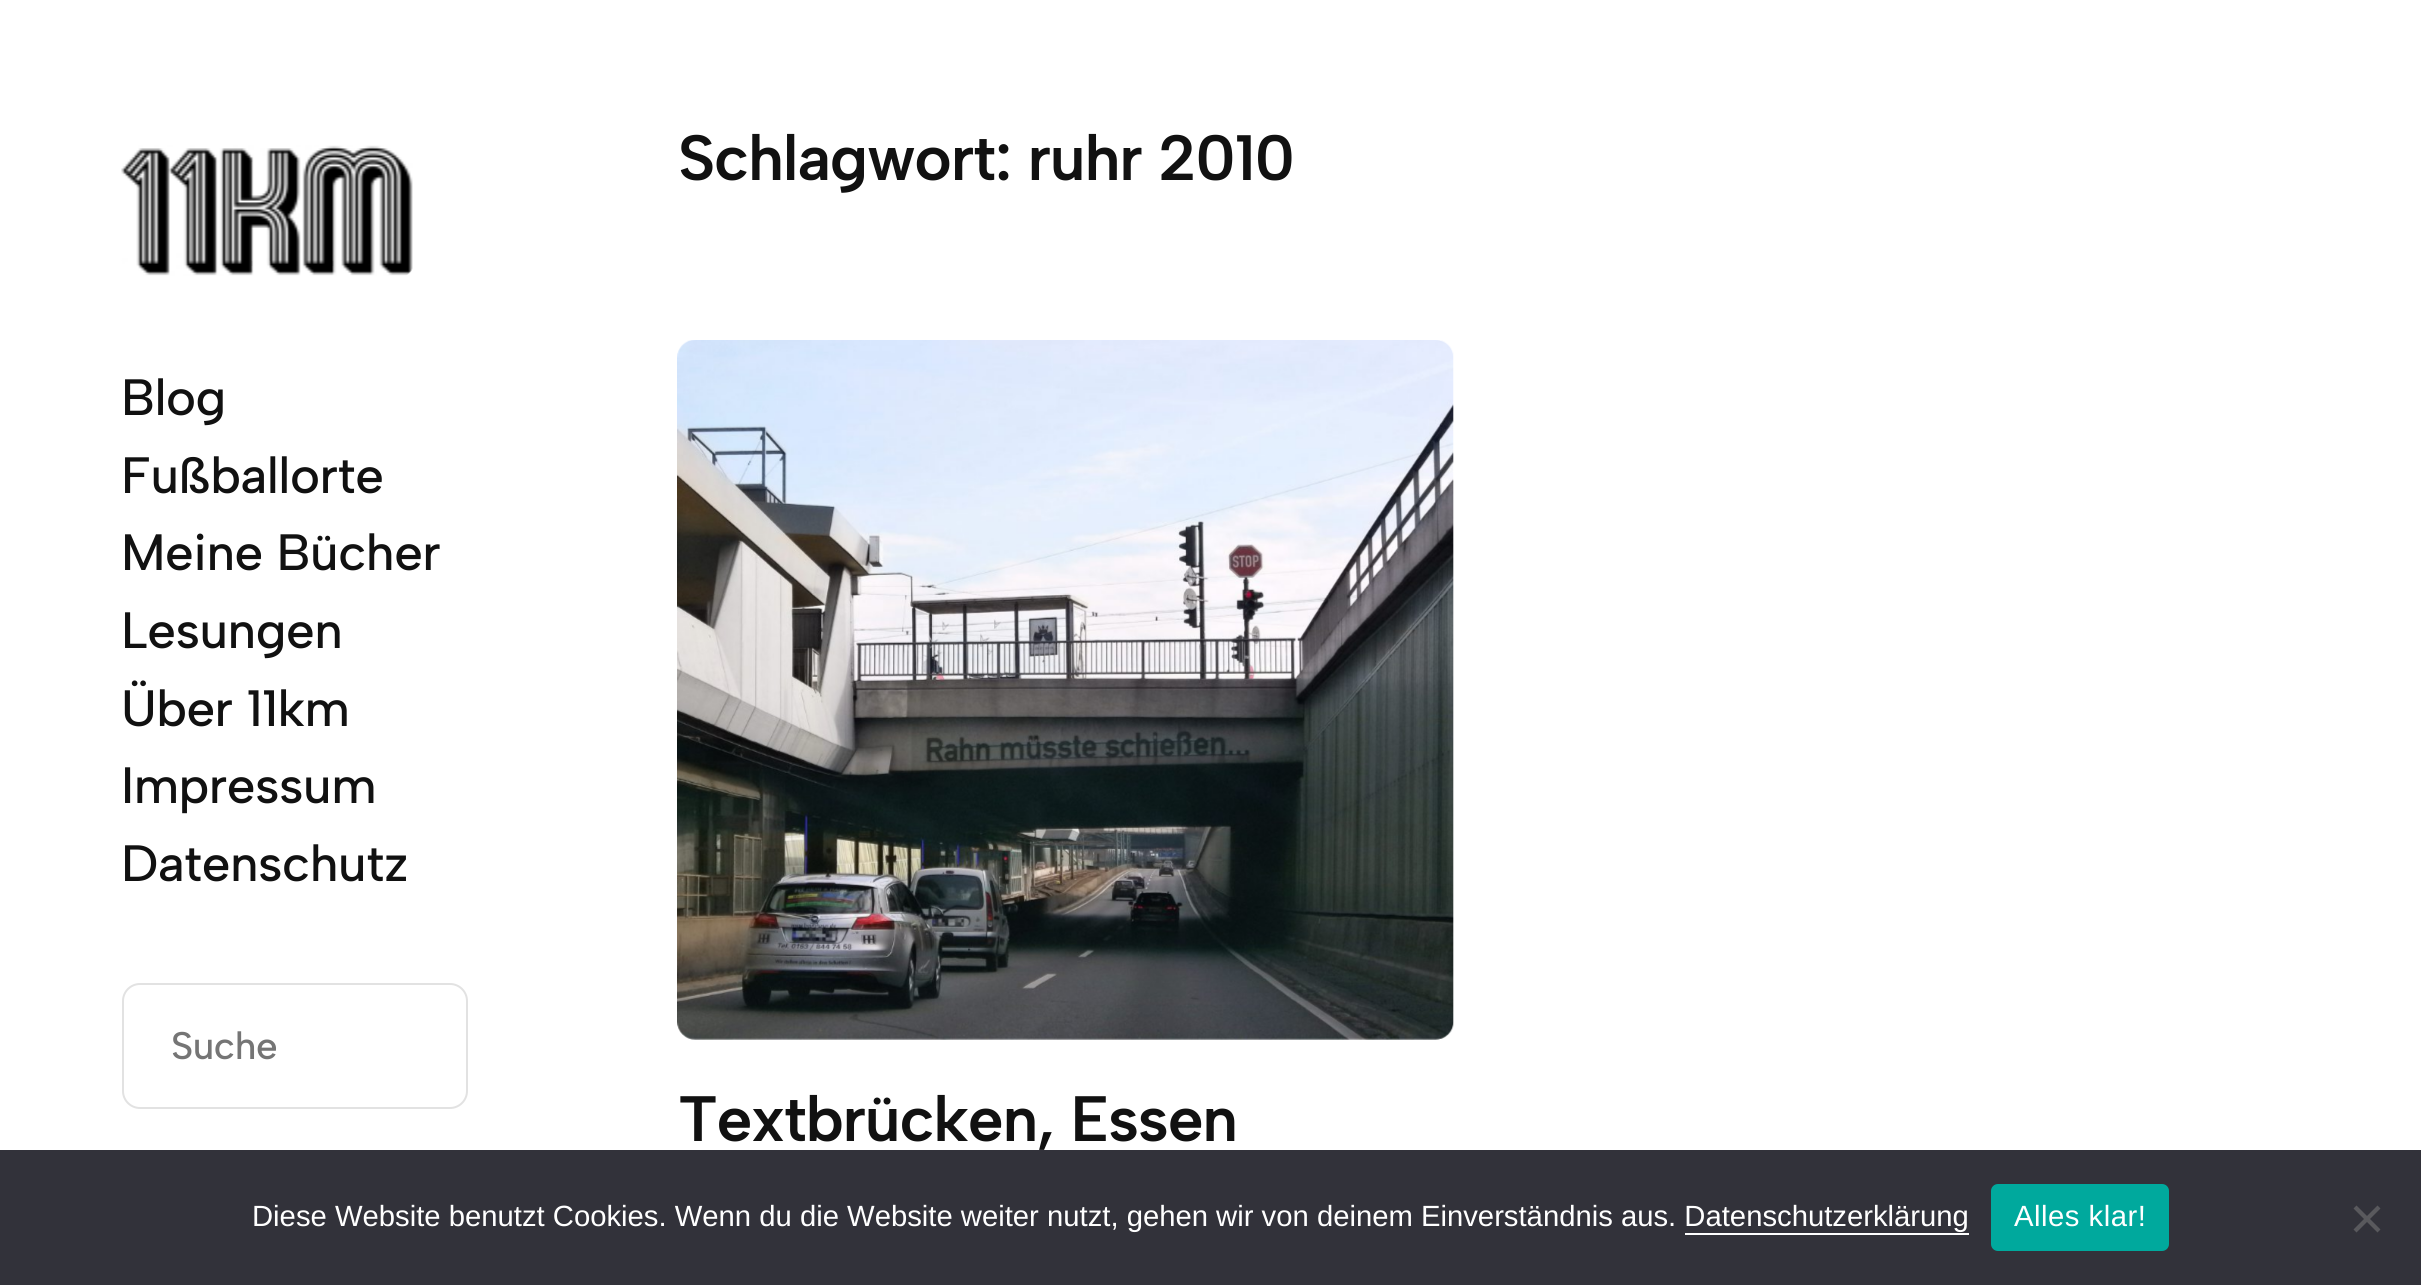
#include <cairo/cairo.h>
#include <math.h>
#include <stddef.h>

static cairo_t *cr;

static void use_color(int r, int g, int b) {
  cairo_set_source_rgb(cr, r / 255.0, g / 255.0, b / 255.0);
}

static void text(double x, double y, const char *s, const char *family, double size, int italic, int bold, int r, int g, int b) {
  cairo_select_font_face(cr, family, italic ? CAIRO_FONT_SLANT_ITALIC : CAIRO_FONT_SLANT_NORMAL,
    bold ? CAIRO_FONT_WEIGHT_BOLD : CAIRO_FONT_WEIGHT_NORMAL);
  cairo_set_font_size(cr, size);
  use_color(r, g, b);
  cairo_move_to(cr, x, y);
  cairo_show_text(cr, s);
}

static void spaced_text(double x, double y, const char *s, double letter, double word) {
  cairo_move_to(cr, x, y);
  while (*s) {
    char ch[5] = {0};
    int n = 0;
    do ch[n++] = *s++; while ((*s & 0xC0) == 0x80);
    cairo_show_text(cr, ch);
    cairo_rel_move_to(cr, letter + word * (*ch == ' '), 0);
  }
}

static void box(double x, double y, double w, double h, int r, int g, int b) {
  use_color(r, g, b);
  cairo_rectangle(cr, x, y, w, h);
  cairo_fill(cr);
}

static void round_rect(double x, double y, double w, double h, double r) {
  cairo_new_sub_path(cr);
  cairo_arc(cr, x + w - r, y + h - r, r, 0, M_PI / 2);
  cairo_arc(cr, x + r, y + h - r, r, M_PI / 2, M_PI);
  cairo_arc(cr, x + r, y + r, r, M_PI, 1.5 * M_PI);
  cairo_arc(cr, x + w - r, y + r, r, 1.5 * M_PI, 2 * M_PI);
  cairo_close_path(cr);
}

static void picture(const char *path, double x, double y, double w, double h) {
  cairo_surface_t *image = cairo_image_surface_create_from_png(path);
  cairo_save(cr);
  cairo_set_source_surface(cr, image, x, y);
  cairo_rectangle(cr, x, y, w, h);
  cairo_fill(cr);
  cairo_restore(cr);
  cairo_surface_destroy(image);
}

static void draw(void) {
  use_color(255, 255, 255);
  cairo_paint(cr);
  picture("img_01.png", 121, 145, 292, 131);
  round_rect(123, 984, 344, 124, 17);
  use_color(226, 226, 226);
  cairo_stroke(cr);
  picture("img_02.png", 677, 340, 777, 700);
  box(0, 1150, 2421, 135, 50, 50, 58);
  box(1685, 1233, 284, 2, 255, 255, 255);
  use_color(0, 169, 157);
  round_rect(1991, 1184, 178, 67, 7);
  cairo_fill(cr);
  use_color(89, 89, 93);
  cairo_new_path(cr);
  cairo_move_to(cr, 2377.5, 1205.5);
  cairo_line_to(cr, 2380.5, 1208.5);
  cairo_line_to(cr, 2356.5, 1232.5);
  cairo_line_to(cr, 2353.5, 1229.5);
  cairo_close_path(cr);
  cairo_fill(cr);
  cairo_new_path(cr);
  cairo_move_to(cr, 2353.5, 1208.5);
  cairo_line_to(cr, 2356.5, 1205.5);
  cairo_line_to(cr, 2380.5, 1229.5);
  cairo_line_to(cr, 2377.5, 1232.5);
  cairo_close_path(cr);
  cairo_fill(cr);
  cairo_select_font_face(cr, "Albert Sans Medium", CAIRO_FONT_SLANT_NORMAL, CAIRO_FONT_WEIGHT_NORMAL);
  cairo_set_font_size(cr, 51);
  use_color(17, 17, 17);
  spaced_text(121, 415, "Blog", -0.5, 0);
  spaced_text(121, 493, "Fußballorte", -0.5, 0);
  spaced_text(121, 570, "Meine Bücher", -0.5, 0);
  spaced_text(121, 648, "Lesungen", -0.5, 0);
  spaced_text(121, 726, "Über 11km", -0.5, 0);
  spaced_text(121, 803, "Impressum", -0.5, 0);
  spaced_text(121, 881, "Datenschutz", -0.5, 0);
  cairo_set_font_size(cr, 38.5);
  use_color(117, 117, 117);
  spaced_text(171, 1059, "Suche", -0.5, 0);
  cairo_select_font_face(cr, "Albert Sans SemiBold", CAIRO_FONT_SLANT_NORMAL, CAIRO_FONT_WEIGHT_NORMAL);
  cairo_set_font_size(cr, 64);
  use_color(17, 17, 17);
  spaced_text(678, 180, "Schlagwort: ruhr 2010", -1.25, 0);
  spaced_text(678, 1141, "Textbrücken, Essen", -1.25, 0);
  text(252, 1226, "Diese Website benutzt Cookies. Wenn du die Website weiter nutzt, gehen wir von deinem Einverständnis aus. Datenschutzerklärung", "Liberation Sans", 29.25, 0, 0, 255, 255, 255);
  spaced_text(2014, 1226, "Alles klar!", 0.5, 0);
}

int main(void) {
  cairo_surface_t *surface = cairo_image_surface_create(CAIRO_FORMAT_RGB24, 2421, 1285);
  cr = cairo_create(surface);
  cairo_font_options_t *options = cairo_font_options_create();
  cairo_font_options_set_hint_metrics(options, CAIRO_HINT_METRICS_OFF);
  cairo_font_options_set_hint_style(options, CAIRO_HINT_STYLE_NONE);
  cairo_set_font_options(cr, options);
  cairo_set_miter_limit(cr, 4);
  draw();
  cairo_surface_write_to_png(surface, "out.png");
  cairo_font_options_destroy(options);
  cairo_destroy(cr);
  cairo_surface_destroy(surface);
  return 0;
}
